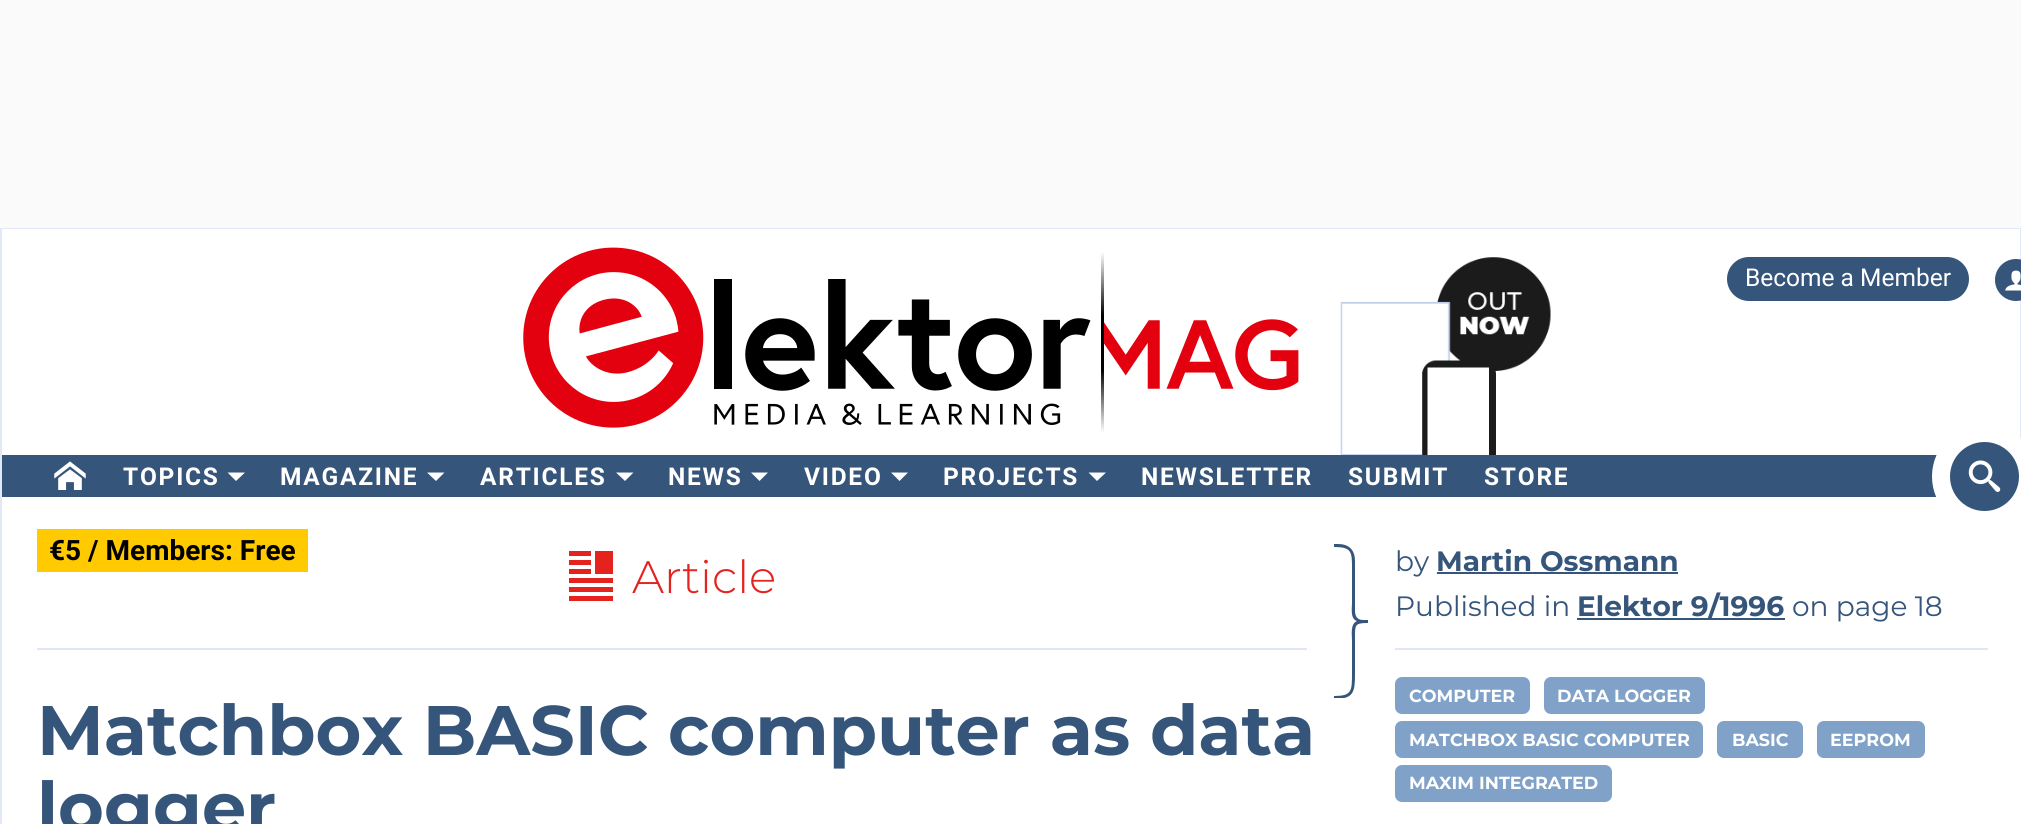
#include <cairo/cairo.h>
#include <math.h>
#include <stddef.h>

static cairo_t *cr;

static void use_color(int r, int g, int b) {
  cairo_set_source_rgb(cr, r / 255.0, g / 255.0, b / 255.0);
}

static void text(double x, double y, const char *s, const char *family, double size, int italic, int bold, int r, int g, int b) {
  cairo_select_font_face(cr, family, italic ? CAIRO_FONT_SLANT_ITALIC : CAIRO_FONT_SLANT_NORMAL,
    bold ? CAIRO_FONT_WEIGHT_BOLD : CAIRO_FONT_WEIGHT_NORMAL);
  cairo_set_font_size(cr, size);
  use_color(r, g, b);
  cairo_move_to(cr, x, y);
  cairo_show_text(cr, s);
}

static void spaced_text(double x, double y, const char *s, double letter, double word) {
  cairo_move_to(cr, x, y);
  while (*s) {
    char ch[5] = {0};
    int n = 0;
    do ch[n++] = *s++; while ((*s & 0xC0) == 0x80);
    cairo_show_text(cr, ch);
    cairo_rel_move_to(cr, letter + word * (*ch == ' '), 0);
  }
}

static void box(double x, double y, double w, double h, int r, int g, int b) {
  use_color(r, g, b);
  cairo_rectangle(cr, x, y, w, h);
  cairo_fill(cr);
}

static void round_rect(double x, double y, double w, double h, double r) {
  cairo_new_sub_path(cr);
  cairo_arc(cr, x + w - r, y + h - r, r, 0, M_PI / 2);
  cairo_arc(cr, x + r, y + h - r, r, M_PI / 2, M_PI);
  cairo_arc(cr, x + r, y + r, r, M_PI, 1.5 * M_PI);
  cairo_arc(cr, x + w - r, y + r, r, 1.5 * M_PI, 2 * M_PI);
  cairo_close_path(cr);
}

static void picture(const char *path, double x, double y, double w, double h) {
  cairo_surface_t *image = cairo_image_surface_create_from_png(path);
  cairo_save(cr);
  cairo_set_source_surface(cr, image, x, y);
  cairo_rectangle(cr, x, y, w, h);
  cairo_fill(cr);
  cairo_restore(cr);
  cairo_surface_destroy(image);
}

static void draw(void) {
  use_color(250, 250, 250);
  cairo_paint(cr);
  box(0, 228, 2021, 1, 224, 233, 245);
  box(2020, 228, 1, 211, 224, 233, 245);
  box(0, 228, 2, 596, 224, 233, 245);
  box(2, 229, 2018, 226, 255, 255, 255);
  picture("img_01.png", 523, 247, 776, 185);
  picture("img_02.png", 1340, 257, 211, 198);
  use_color(53, 85, 122);
  round_rect(1727, 257, 242, 44, 22);
  cairo_fill(cr);
  cairo_arc(cr, 2016, 280, 21, 0, 2 * M_PI);
  cairo_fill(cr);
  picture("img_03.png", 2005, 270, 16, 21);
  box(2, 455, 1935, 42, 53, 85, 122);
  picture("img_04.png", 54, 461, 32, 29);
  use_color(255, 255, 255);
  cairo_new_path(cr);
  cairo_move_to(cr, 227.5, 472.5);
  cairo_line_to(cr, 245, 472.5);
  cairo_line_to(cr, 236, 481);
  cairo_close_path(cr);
  cairo_fill(cr);
  cairo_new_path(cr);
  cairo_move_to(cr, 427, 472.5);
  cairo_line_to(cr, 444.5, 472.5);
  cairo_line_to(cr, 436, 481);
  cairo_close_path(cr);
  cairo_fill(cr);
  cairo_new_path(cr);
  cairo_move_to(cr, 616, 472.5);
  cairo_line_to(cr, 633.5, 472.5);
  cairo_line_to(cr, 625, 481);
  cairo_close_path(cr);
  cairo_fill(cr);
  cairo_new_path(cr);
  cairo_move_to(cr, 751, 472.5);
  cairo_line_to(cr, 768, 472.5);
  cairo_line_to(cr, 759.5, 481);
  cairo_close_path(cr);
  cairo_fill(cr);
  cairo_new_path(cr);
  cairo_move_to(cr, 891, 472.5);
  cairo_line_to(cr, 908, 472.5);
  cairo_line_to(cr, 899.5, 481);
  cairo_close_path(cr);
  cairo_fill(cr);
  cairo_new_path(cr);
  cairo_move_to(cr, 1088.5, 472.5);
  cairo_line_to(cr, 1106, 472.5);
  cairo_line_to(cr, 1097, 481);
  cairo_close_path(cr);
  cairo_fill(cr);
  box(2, 497, 2019, 327, 255, 255, 255);
  use_color(53, 85, 122);
  cairo_arc(cr, 1984.5, 476.5, 43.5, 0, 2 * M_PI);
  cairo_fill_preserve(cr);
  use_color(255, 255, 255);
  cairo_set_line_width(cr, 18);
  cairo_stroke(cr);
  picture("img_05.png", 1968, 460, 33, 32);
  box(37, 529, 271, 43, 255, 202, 0);
  box(37, 648, 1270, 2, 224, 230, 245);
  box(595, 551, 18, 23, 228, 35, 30);
  box(569, 551, 22, 5, 228, 35, 30);
  box(569, 560, 22, 5, 228, 35, 30);
  box(569, 569, 22, 5, 228, 35, 30);
  box(569, 578, 44, 5, 228, 35, 30);
  box(569, 587, 44, 5, 228, 35, 30);
  box(569, 596, 44, 5, 228, 35, 30);
  cairo_save(cr);
  cairo_rectangle(cr, 1334, 544, 35, 154);
  cairo_clip(cr);
  use_color(53, 85, 122);
  cairo_new_path(cr);
  cairo_move_to(cr, 1368, 620);
  cairo_line_to(cr, 1368, 623);
  cairo_curve_to(cr, 1354, 623, 1355, 625, 1355, 640);
  cairo_line_to(cr, 1355, 673);
  cairo_curve_to(cr, 1355, 692, 1354, 699, 1334, 699);
  cairo_line_to(cr, 1334, 696);
  cairo_curve_to(cr, 1352, 696, 1352, 691, 1352, 673);
  cairo_line_to(cr, 1352, 640);
  cairo_curve_to(cr, 1352, 635, 1350, 624, 1357, 621);
  cairo_curve_to(cr, 1350, 619, 1352, 608, 1352, 603);
  cairo_line_to(cr, 1352, 569);
  cairo_curve_to(cr, 1352, 552, 1352, 547, 1334, 547);
  cairo_line_to(cr, 1334, 544);
  cairo_line_to(cr, 1338, 544);
  cairo_curve_to(cr, 1349, 544, 1355, 550, 1355, 561);
  cairo_line_to(cr, 1355, 611);
  cairo_curve_to(cr, 1355, 617, 1358, 620, 1363, 620);
  cairo_close_path(cr);
  cairo_fill(cr);
  cairo_restore(cr);
  box(1437, 572, 241, 2, 53, 85, 122);
  box(1577, 618, 208, 2, 53, 85, 122);
  box(1395, 648, 593, 2, 224, 230, 245);
  use_color(128, 161, 200);
  round_rect(1395, 677, 135, 37, 7);
  cairo_fill(cr);
  round_rect(1544, 677, 161, 37, 7);
  cairo_fill(cr);
  round_rect(1395, 721, 308, 37, 7);
  cairo_fill(cr);
  round_rect(1717, 721, 86, 37, 7);
  cairo_fill(cr);
  round_rect(1817, 721, 108, 37, 7);
  cairo_fill(cr);
  round_rect(1395, 765, 217, 37, 7);
  cairo_fill(cr);
  text(1745, 286, "Become a Member", "Roboto", 24.5, 0, 0, 255, 255, 255);
  cairo_select_font_face(cr, "Roboto", CAIRO_FONT_SLANT_NORMAL, CAIRO_FONT_WEIGHT_BOLD);
  spaced_text(123, 485, "TOPICS", 1.75, 0);
  spaced_text(280, 485, "MAGAZINE", 1.75, 0);
  spaced_text(480, 485, "ARTICLES", 1.75, 0);
  spaced_text(668, 485, "NEWS", 1.75, 0);
  spaced_text(804, 485, "VIDEO", 1.75, 0);
  spaced_text(943, 485, "PROJECTS", 1.75, 0);
  spaced_text(1141, 485, "NEWSLETTER", 1.75, 0);
  spaced_text(1348, 485, "SUBMIT", 1.75, 0);
  spaced_text(1484, 485, "STORE", 1.75, 0);
  text(49, 560, "€5 / Members: Free", "Roboto", 28, 0, 1, 0, 0, 0);
  text(632, 593, "Article", "Montserrat Light", 45.5, 0, 0, 228, 35, 30);
  text(37, 755, "Matchbox BASIC computer as data", "Montserrat", 70, 0, 1, 53, 85, 122);
  text(37, 832, "logger", "Montserrat", 70, 0, 1, 53, 85, 122);
  text(1395, 571, "by", "Montserrat", 28, 0, 0, 53, 85, 122);
  text(1436, 571, "Martin Ossmann", "Montserrat", 28, 0, 1, 53, 85, 122);
  text(1395, 616, "Published in", "Montserrat", 28, 0, 0, 53, 85, 122);
  text(1577, 616, "Elektor 9/1996", "Montserrat", 28, 0, 1, 53, 85, 122);
  text(1792, 616, "on page 18", "Montserrat", 28, 0, 0, 53, 85, 122);
  text(1409, 702, "COMPUTER", "Montserrat", 17.5, 0, 1, 255, 255, 255);
  text(1557, 702, "DATA LOGGER", "Montserrat", 17.5, 0, 1, 255, 255, 255);
  text(1409, 746, "MATCHBOX BASIC COMPUTER", "Montserrat", 17.5, 0, 1, 255, 255, 255);
  text(1732, 746, "BASIC", "Montserrat", 17.5, 0, 1, 255, 255, 255);
  text(1830, 746, "EEPROM", "Montserrat", 17.5, 0, 1, 255, 255, 255);
  text(1409, 789, "MAXIM INTEGRATED", "Montserrat", 17.5, 0, 1, 255, 255, 255);
}

int main(void) {
  cairo_surface_t *surface = cairo_image_surface_create(CAIRO_FORMAT_RGB24, 2021, 824);
  cr = cairo_create(surface);
  cairo_font_options_t *options = cairo_font_options_create();
  cairo_font_options_set_hint_metrics(options, CAIRO_HINT_METRICS_OFF);
  cairo_font_options_set_hint_style(options, CAIRO_HINT_STYLE_NONE);
  cairo_set_font_options(cr, options);
  cairo_set_miter_limit(cr, 4);
  draw();
  cairo_surface_write_to_png(surface, "out.png");
  cairo_font_options_destroy(options);
  cairo_destroy(cr);
  cairo_surface_destroy(surface);
  return 0;
}
